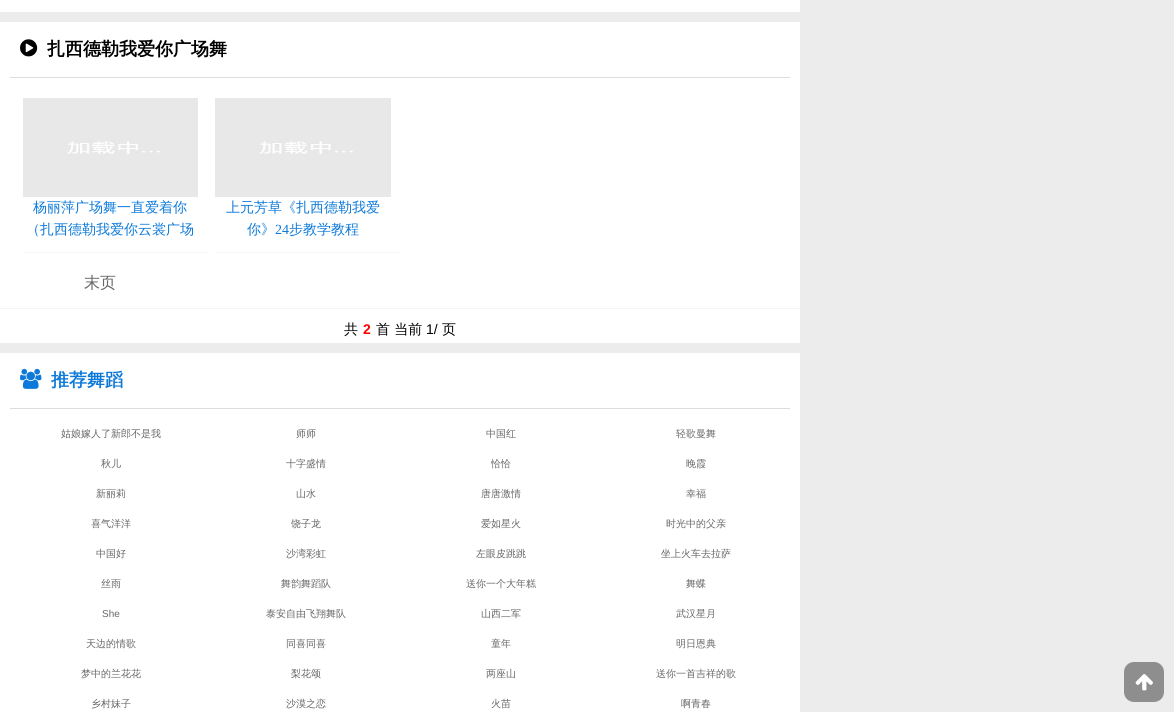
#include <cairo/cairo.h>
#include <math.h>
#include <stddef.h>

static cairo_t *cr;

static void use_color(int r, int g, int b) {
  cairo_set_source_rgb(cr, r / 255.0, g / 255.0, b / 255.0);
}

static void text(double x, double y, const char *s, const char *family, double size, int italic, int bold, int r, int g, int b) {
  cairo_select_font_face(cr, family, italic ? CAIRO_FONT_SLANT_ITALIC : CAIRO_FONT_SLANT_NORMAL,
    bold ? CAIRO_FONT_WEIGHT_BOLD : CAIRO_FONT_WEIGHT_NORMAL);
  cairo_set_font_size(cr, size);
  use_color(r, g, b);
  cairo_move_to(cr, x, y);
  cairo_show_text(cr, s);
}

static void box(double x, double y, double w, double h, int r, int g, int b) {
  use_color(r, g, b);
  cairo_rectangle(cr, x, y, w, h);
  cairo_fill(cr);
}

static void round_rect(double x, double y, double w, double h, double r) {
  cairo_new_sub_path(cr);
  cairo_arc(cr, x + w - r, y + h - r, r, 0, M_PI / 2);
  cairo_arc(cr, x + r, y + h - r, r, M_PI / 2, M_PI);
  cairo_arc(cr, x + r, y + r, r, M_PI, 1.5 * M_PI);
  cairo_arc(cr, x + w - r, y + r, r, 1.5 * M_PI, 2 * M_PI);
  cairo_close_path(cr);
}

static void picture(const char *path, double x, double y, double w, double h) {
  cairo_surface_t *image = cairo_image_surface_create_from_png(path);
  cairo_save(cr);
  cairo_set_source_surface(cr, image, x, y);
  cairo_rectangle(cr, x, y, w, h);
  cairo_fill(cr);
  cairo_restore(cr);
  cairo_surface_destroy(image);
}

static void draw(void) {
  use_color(236, 236, 236);
  cairo_paint(cr);
  box(0, 0, 800, 12, 255, 255, 255);
  box(0, 22, 800, 321, 255, 255, 255);
  box(10, 77, 780, 1, 221, 221, 221);
  picture("img_01.png", 20, 39, 18, 18);
  box(23, 252, 184, 1, 247, 247, 247);
  picture("img_02.png", 23, 98, 175, 99);
  box(215, 252, 185, 1, 247, 247, 247);
  picture("img_03.png", 215, 98, 176, 99);
  box(0, 308, 800, 1, 244, 244, 244);
  box(0, 353, 800, 359, 255, 255, 255);
  box(10, 408, 780, 1, 221, 221, 221);
  picture("img_04.png", 20, 368, 22, 21);
  use_color(142, 142, 142);
  round_rect(1124, 662, 40, 40, 10);
  cairo_fill(cr);
  picture("img_05.png", 1135, 674, 18, 17);
  text(47, 55, "扎西德勒我爱你广场舞", "WenQuanYi Zen Hei", 18, 0, 1, 0, 0, 0);
  text(33, 212, "杨丽萍广场舞一直爱着你", "WenQuanYi Zen Hei Medium", 14, 0, 0, 13, 122, 217);
  text(26, 234, "（扎西德勒我爱你云裳广场", "WenQuanYi Zen Hei Medium", 14, 0, 0, 13, 122, 217);
  text(226, 212, "上元芳草《扎西德勒我爱", "WenQuanYi Zen Hei Medium", 14, 0, 0, 13, 122, 217);
  text(247, 234, "你》", "WenQuanYi Zen Hei Medium", 14, 0, 0, 13, 122, 217);
  text(275, 234, "24", "Liberation Serif", 14, 0, 0, 13, 122, 217);
  text(289, 234, "步教学教程", "WenQuanYi Zen Hei Medium", 14, 0, 0, 13, 122, 217);
  text(84, 288, "末页", "WenQuanYi Zen Hei Medium", 16, 0, 0, 102, 102, 102);
  text(344, 334, "共", "WenQuanYi Zen Hei Medium", 14, 0, 0, 0, 0, 0);
  text(363, 334, "2", "Liberation Sans", 14, 0, 1, 255, 0, 0);
  text(376, 334, "首 当前", "WenQuanYi Zen Hei Medium", 14, 0, 0, 0, 0, 0);
  text(426, 334, "1/", "Liberation Sans", 14, 0, 0, 0, 0, 0);
  text(442, 334, "页", "WenQuanYi Zen Hei Medium", 14, 0, 0, 0, 0, 0);
  text(51, 386, "推荐舞蹈", "WenQuanYi Zen Hei", 18, 0, 1, 13, 122, 217);
  text(61, 437, "姑娘嫁人了新郎不是我", "WenQuanYi Zen Hei Medium", 10, 0, 0, 102, 102, 102);
  text(296, 437, "师师", "WenQuanYi Zen Hei Medium", 10, 0, 0, 102, 102, 102);
  text(486, 437, "中国红", "WenQuanYi Zen Hei Medium", 10, 0, 0, 102, 102, 102);
  text(676, 437, "轻歌曼舞", "WenQuanYi Zen Hei Medium", 10, 0, 0, 102, 102, 102);
  text(101, 467, "秋儿", "WenQuanYi Zen Hei Medium", 10, 0, 0, 102, 102, 102);
  text(286, 467, "十字盛情", "WenQuanYi Zen Hei Medium", 10, 0, 0, 102, 102, 102);
  text(491, 467, "恰恰", "WenQuanYi Zen Hei Medium", 10, 0, 0, 102, 102, 102);
  text(686, 467, "晚霞", "WenQuanYi Zen Hei Medium", 10, 0, 0, 102, 102, 102);
  text(96, 497, "新丽莉", "WenQuanYi Zen Hei Medium", 10, 0, 0, 102, 102, 102);
  text(296, 497, "山水", "WenQuanYi Zen Hei Medium", 10, 0, 0, 102, 102, 102);
  text(481, 497, "唐唐激情", "WenQuanYi Zen Hei Medium", 10, 0, 0, 102, 102, 102);
  text(686, 497, "幸福", "WenQuanYi Zen Hei Medium", 10, 0, 0, 102, 102, 102);
  text(91, 527, "喜气洋洋", "WenQuanYi Zen Hei Medium", 10, 0, 0, 102, 102, 102);
  text(291, 527, "饶子龙", "WenQuanYi Zen Hei Medium", 10, 0, 0, 102, 102, 102);
  text(481, 527, "爱如星火", "WenQuanYi Zen Hei Medium", 10, 0, 0, 102, 102, 102);
  text(666, 527, "时光中的父亲", "WenQuanYi Zen Hei Medium", 10, 0, 0, 102, 102, 102);
  text(96, 557, "中国好", "WenQuanYi Zen Hei Medium", 10, 0, 0, 102, 102, 102);
  text(286, 557, "沙湾彩虹", "WenQuanYi Zen Hei Medium", 10, 0, 0, 102, 102, 102);
  text(476, 557, "左眼皮跳跳", "WenQuanYi Zen Hei Medium", 10, 0, 0, 102, 102, 102);
  text(661, 557, "坐上火车去拉萨", "WenQuanYi Zen Hei Medium", 10, 0, 0, 102, 102, 102);
  text(101, 587, "丝雨", "WenQuanYi Zen Hei Medium", 10, 0, 0, 102, 102, 102);
  text(281, 587, "舞韵舞蹈队", "WenQuanYi Zen Hei Medium", 10, 0, 0, 102, 102, 102);
  text(466, 587, "送你一个大年糕", "WenQuanYi Zen Hei Medium", 10, 0, 0, 102, 102, 102);
  text(686, 587, "舞蝶", "WenQuanYi Zen Hei Medium", 10, 0, 0, 102, 102, 102);
  text(102, 617, "She", "Liberation Sans", 10, 0, 0, 102, 102, 102);
  text(266, 617, "泰安自由飞翔舞队", "WenQuanYi Zen Hei Medium", 10, 0, 0, 102, 102, 102);
  text(481, 617, "山西二军", "WenQuanYi Zen Hei Medium", 10, 0, 0, 102, 102, 102);
  text(676, 617, "武汉星月", "WenQuanYi Zen Hei Medium", 10, 0, 0, 102, 102, 102);
  text(86, 647, "天边的情歌", "WenQuanYi Zen Hei Medium", 10, 0, 0, 102, 102, 102);
  text(286, 647, "同喜同喜", "WenQuanYi Zen Hei Medium", 10, 0, 0, 102, 102, 102);
  text(491, 647, "童年", "WenQuanYi Zen Hei Medium", 10, 0, 0, 102, 102, 102);
  text(676, 647, "明日恩典", "WenQuanYi Zen Hei Medium", 10, 0, 0, 102, 102, 102);
  text(81, 677, "梦中的兰花花", "WenQuanYi Zen Hei Medium", 10, 0, 0, 102, 102, 102);
  text(291, 677, "梨花颂", "WenQuanYi Zen Hei Medium", 10, 0, 0, 102, 102, 102);
  text(486, 677, "两座山", "WenQuanYi Zen Hei Medium", 10, 0, 0, 102, 102, 102);
  text(656, 677, "送你一首吉祥的歌", "WenQuanYi Zen Hei Medium", 10, 0, 0, 102, 102, 102);
  text(91, 707, "乡村妹子", "WenQuanYi Zen Hei Medium", 10, 0, 0, 102, 102, 102);
  text(286, 707, "沙漠之恋", "WenQuanYi Zen Hei Medium", 10, 0, 0, 102, 102, 102);
  text(491, 707, "火苗", "WenQuanYi Zen Hei Medium", 10, 0, 0, 102, 102, 102);
  text(681, 707, "啊青春", "WenQuanYi Zen Hei Medium", 10, 0, 0, 102, 102, 102);
}

int main(void) {
  cairo_surface_t *surface = cairo_image_surface_create(CAIRO_FORMAT_RGB24, 1174, 712);
  cr = cairo_create(surface);
  cairo_font_options_t *options = cairo_font_options_create();
  cairo_font_options_set_hint_metrics(options, CAIRO_HINT_METRICS_OFF);
  cairo_font_options_set_hint_style(options, CAIRO_HINT_STYLE_NONE);
  cairo_set_font_options(cr, options);
  cairo_set_miter_limit(cr, 4);
  draw();
  cairo_surface_write_to_png(surface, "out.png");
  cairo_font_options_destroy(options);
  cairo_destroy(cr);
  cairo_surface_destroy(surface);
  return 0;
}
